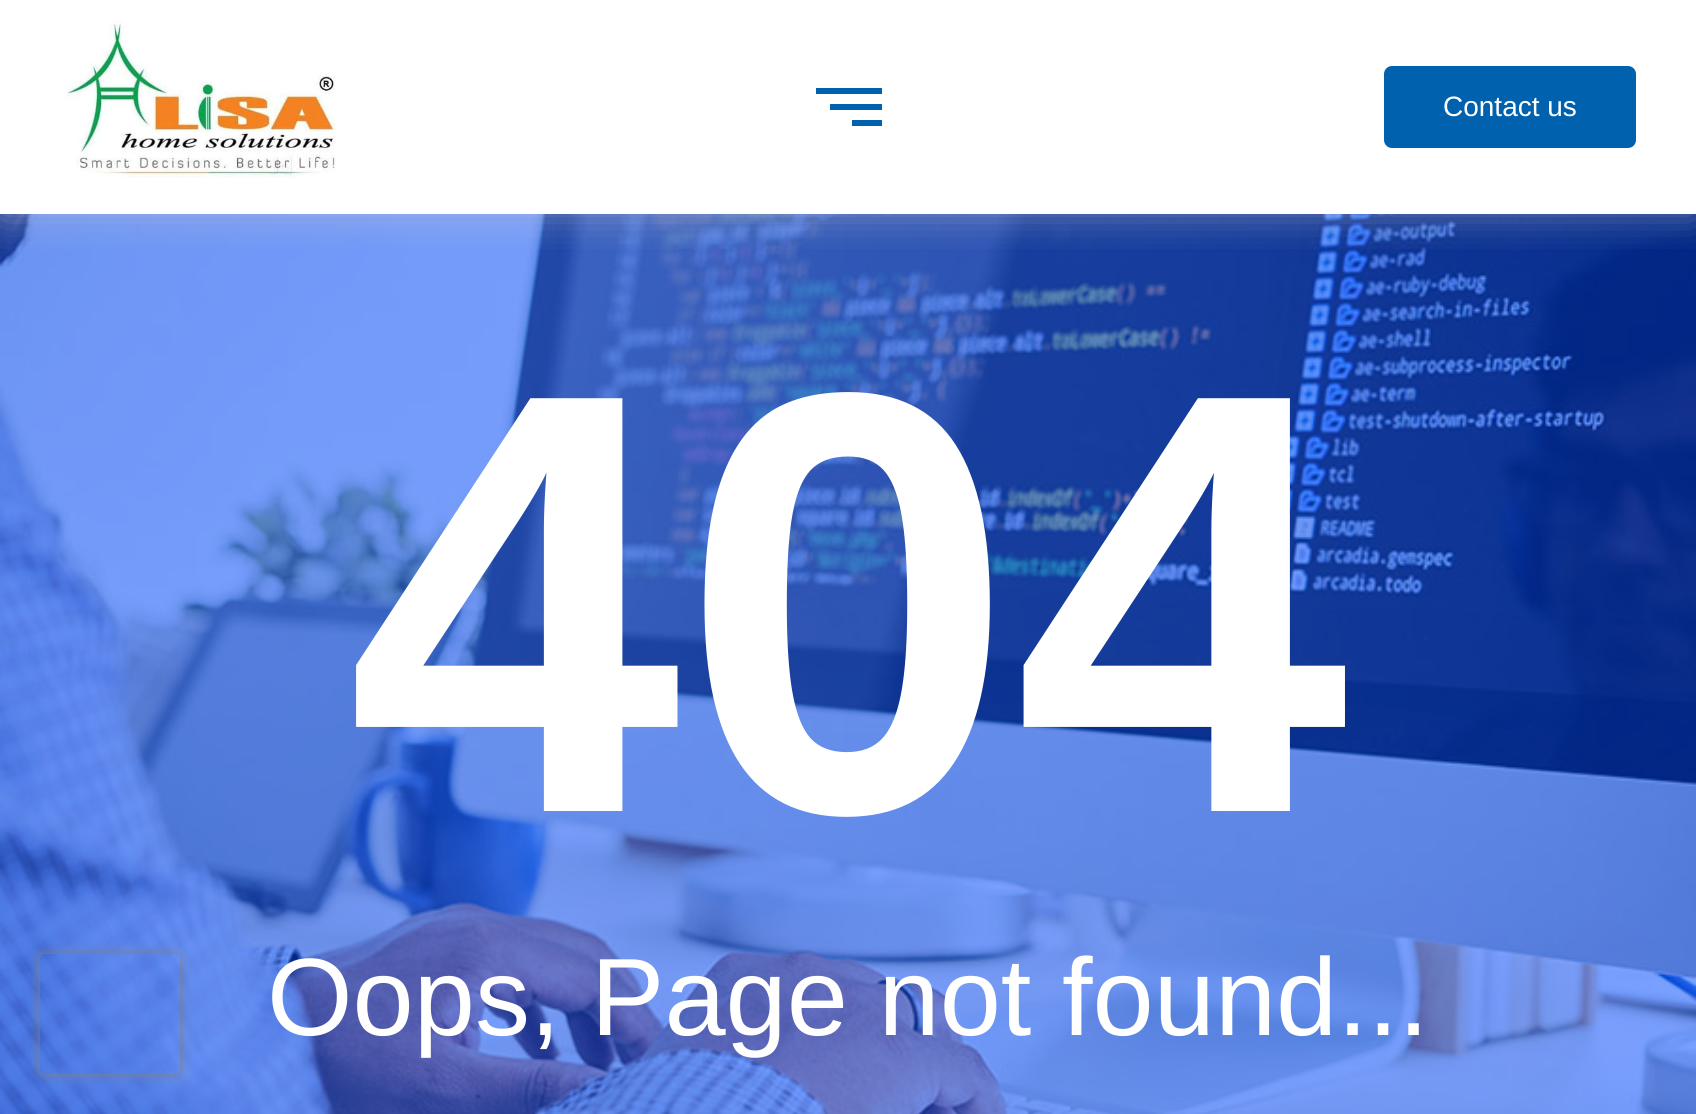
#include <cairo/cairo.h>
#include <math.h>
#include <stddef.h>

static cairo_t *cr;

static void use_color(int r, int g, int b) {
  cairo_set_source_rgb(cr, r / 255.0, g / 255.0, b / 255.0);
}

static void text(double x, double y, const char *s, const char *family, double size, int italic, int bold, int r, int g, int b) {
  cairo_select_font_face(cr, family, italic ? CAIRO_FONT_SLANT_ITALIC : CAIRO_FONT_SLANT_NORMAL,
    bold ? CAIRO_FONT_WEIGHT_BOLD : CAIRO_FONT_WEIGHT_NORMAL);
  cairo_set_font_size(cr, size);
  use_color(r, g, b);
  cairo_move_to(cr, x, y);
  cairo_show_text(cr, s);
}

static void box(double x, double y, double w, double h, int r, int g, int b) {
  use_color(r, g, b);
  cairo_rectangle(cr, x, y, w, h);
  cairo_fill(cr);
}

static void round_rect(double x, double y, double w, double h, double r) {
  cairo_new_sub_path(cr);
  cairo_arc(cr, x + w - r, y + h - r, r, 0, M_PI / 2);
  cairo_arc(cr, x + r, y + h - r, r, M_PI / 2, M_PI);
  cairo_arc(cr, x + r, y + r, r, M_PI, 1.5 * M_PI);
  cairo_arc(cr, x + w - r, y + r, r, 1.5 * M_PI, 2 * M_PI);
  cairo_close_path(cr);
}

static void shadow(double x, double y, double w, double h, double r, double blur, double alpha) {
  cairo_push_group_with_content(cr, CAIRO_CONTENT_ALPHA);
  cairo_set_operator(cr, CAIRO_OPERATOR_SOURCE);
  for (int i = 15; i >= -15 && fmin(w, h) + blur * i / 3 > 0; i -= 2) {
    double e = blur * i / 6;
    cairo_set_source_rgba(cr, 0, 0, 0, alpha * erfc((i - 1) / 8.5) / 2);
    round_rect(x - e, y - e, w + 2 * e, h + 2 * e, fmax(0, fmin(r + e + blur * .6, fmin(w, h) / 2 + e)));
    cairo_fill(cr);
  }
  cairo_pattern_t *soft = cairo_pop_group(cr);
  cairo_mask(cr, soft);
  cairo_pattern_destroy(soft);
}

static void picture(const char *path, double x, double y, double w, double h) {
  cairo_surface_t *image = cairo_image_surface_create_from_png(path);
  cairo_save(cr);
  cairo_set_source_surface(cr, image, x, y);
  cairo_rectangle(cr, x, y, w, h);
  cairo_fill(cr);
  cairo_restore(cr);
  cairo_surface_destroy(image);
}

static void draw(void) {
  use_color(255, 255, 255);
  cairo_paint(cr);
  picture("img_02.png", 0, 214, 1696, 900);
  cairo_save(cr);
  cairo_rectangle(cr, 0, 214, 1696, 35);
  cairo_clip(cr);
  use_color(203, 203, 203);
  shadow(0, 0, 1696, 214, 0, 20, 0.5);
  cairo_restore(cr);
  picture("img_01.png", 65, 20, 271, 158);
  box(816, 88, 66, 6, 0, 97, 175);
  box(830, 104, 52, 6, 0, 97, 175);
  box(852, 120, 30, 6, 0, 97, 175);
  round_rect(1384, 66, 252, 82, 8);
  cairo_fill(cr);
  cairo_save(cr);
  cairo_set_fill_rule(cr, CAIRO_FILL_RULE_EVEN_ODD);
  cairo_new_path(cr);
  cairo_move_to(cr, 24, 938);
  cairo_line_to(cr, 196, 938);
  cairo_line_to(cr, 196, 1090);
  cairo_line_to(cr, 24, 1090);
  cairo_close_path(cr);
  cairo_move_to(cr, 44, 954);
  cairo_line_to(cr, 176, 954);
  cairo_curve_to(cr, 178, 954, 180, 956, 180, 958);
  cairo_line_to(cr, 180, 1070);
  cairo_curve_to(cr, 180, 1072, 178, 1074, 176, 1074);
  cairo_line_to(cr, 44, 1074);
  cairo_curve_to(cr, 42, 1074, 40, 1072, 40, 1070);
  cairo_line_to(cr, 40, 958);
  cairo_curve_to(cr, 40, 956, 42, 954, 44, 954);
  cairo_close_path(cr);
  cairo_clip(cr);
  use_color(128, 128, 128);
  shadow(40, 954, 140, 120, 4, 5, 1);
  cairo_restore(cr);
  text(1443, 116, "Contact us", "Liberation Sans", 28, 0, 0, 255, 255, 255);
  text(347, 811, "404", "Liberation Sans", 600, 0, 1, 255, 255, 255);
  text(267, 1035, "Oops, Page not found...", "Liberation Sans", 110, 0, 0, 255, 255, 255);
}

int main(void) {
  cairo_surface_t *surface = cairo_image_surface_create(CAIRO_FORMAT_RGB24, 1696, 1114);
  cr = cairo_create(surface);
  cairo_font_options_t *options = cairo_font_options_create();
  cairo_font_options_set_hint_metrics(options, CAIRO_HINT_METRICS_OFF);
  cairo_font_options_set_hint_style(options, CAIRO_HINT_STYLE_NONE);
  cairo_set_font_options(cr, options);
  cairo_set_miter_limit(cr, 4);
  draw();
  cairo_surface_write_to_png(surface, "out.png");
  cairo_font_options_destroy(options);
  cairo_destroy(cr);
  cairo_surface_destroy(surface);
  return 0;
}
